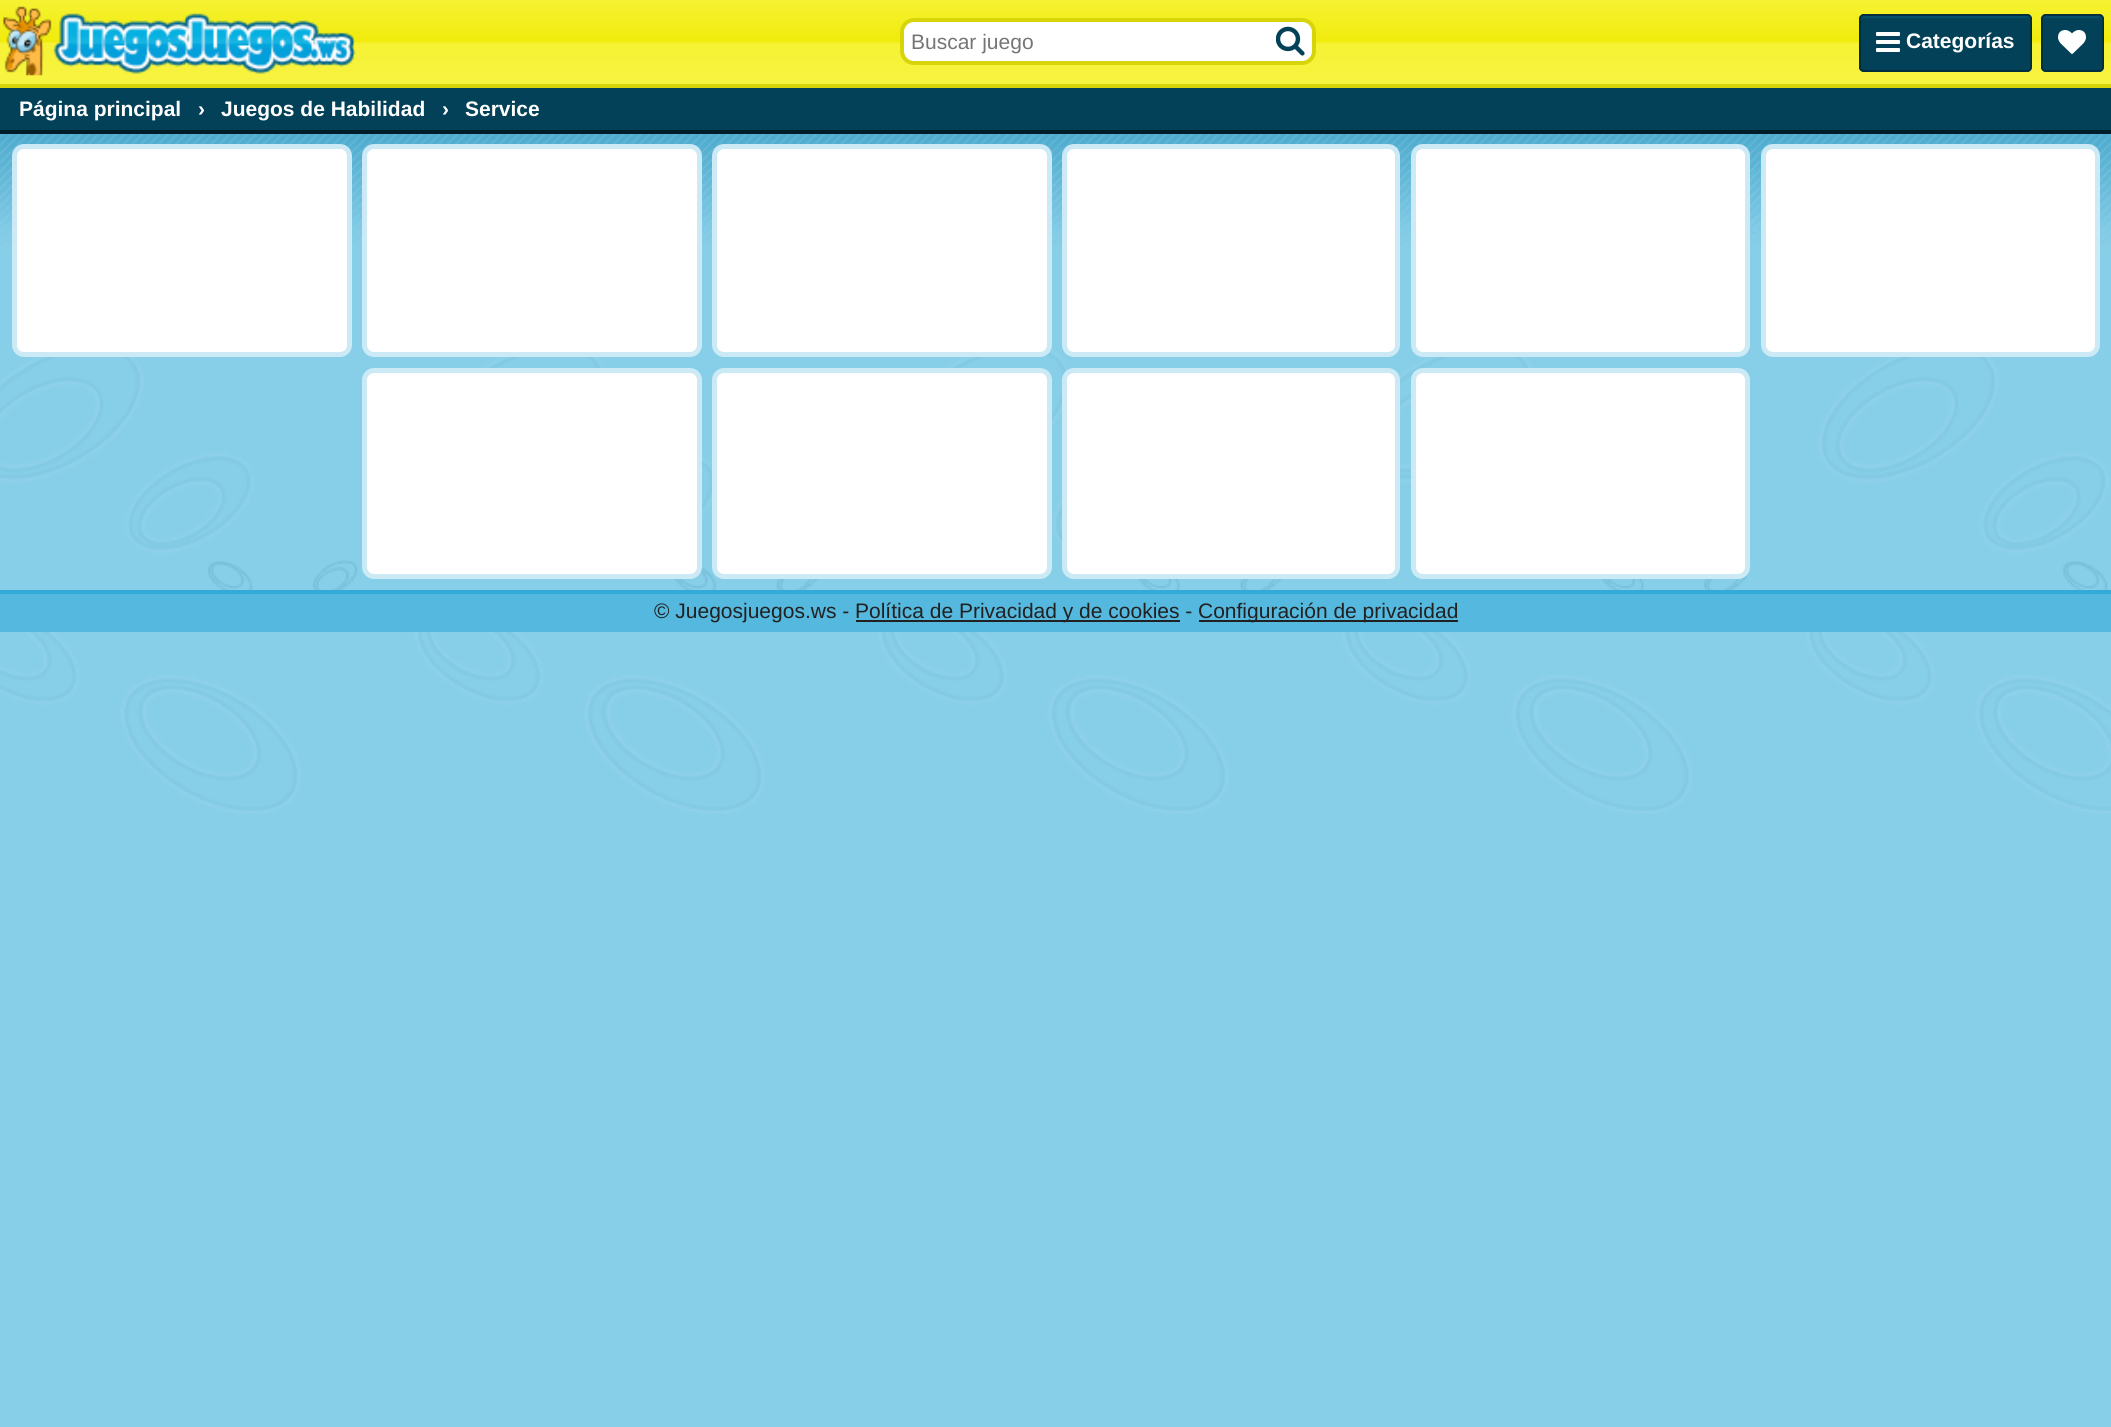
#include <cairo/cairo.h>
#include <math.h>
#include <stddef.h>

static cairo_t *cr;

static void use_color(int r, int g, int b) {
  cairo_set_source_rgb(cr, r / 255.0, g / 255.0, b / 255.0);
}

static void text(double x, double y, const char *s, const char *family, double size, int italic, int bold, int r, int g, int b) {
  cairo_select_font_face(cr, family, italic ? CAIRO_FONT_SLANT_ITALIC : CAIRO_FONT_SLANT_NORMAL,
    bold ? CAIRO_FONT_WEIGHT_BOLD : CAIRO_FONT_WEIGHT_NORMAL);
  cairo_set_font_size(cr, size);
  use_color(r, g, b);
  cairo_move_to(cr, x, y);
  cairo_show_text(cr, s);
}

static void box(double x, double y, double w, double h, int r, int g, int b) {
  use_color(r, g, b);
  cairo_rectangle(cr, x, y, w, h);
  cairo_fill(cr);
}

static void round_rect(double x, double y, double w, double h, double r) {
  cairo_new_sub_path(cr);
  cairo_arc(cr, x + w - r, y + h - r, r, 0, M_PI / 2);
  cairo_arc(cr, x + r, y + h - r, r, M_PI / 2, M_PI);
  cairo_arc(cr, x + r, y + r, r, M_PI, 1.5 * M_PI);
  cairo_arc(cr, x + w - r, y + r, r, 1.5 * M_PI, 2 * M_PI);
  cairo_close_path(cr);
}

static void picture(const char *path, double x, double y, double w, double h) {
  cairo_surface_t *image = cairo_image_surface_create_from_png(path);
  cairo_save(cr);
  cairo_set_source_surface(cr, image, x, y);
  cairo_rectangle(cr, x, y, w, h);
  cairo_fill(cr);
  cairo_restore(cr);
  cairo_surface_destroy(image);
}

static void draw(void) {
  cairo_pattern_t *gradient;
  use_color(135, 206, 232);
  cairo_paint(cr);
  picture("img_01.png", 0, 134, 2111, 680);
  gradient = cairo_pattern_create_linear(1056, 0, 1056, 84);
  cairo_pattern_add_color_stop_rgba(gradient, 0, 0.965, 0.949, 0.2, 1);
  cairo_pattern_add_color_stop_rgba(gradient, 0.5, 0.941, 0.922, 0.043, 1);
  cairo_pattern_add_color_stop_rgba(gradient, 0.51, 0.965, 0.949, 0.2, 1);
  cairo_pattern_add_color_stop_rgba(gradient, 1, 0.969, 0.953, 0.259, 1);
  cairo_set_source(cr, gradient);
  cairo_pattern_destroy(gradient);
  cairo_rectangle(cr, 0, 0, 2111, 84);
  cairo_fill(cr);
  box(0, 84, 2111, 4, 216, 212, 10);
  picture("img_02.png", 3, 6, 353, 70);
  use_color(255, 255, 255);
  round_rect(902, 20, 412, 43, 12);
  cairo_fill_preserve(cr);
  use_color(216, 212, 10);
  cairo_set_line_width(cr, 4);
  cairo_stroke(cr);
  picture("img_03.png", 1276, 26, 29, 30);
  use_color(3, 65, 88);
  round_rect(1859, 14, 173, 58, 5);
  cairo_fill(cr);
  use_color(4, 80, 108);
  cairo_new_path(cr);
  cairo_move_to(cr, 1864, 18);
  cairo_line_to(cr, 2026, 18);
  cairo_curve_to(cr, 2028, 18, 2030, 19, 2030, 21);
  cairo_line_to(cr, 2030, 20);
  cairo_curve_to(cr, 2030, 18, 2028, 16, 2026, 16);
  cairo_line_to(cr, 1864, 16);
  cairo_curve_to(cr, 1862, 16, 1860, 18, 1860, 20);
  cairo_line_to(cr, 1860, 21);
  cairo_curve_to(cr, 1860, 19, 1862, 18, 1864, 18);
  cairo_close_path(cr);
  cairo_fill(cr);
  round_rect(1860, 15, 171, 56, 4);
  use_color(2, 47, 63);
  cairo_set_line_width(cr, 2);
  cairo_stroke(cr);
  picture("img_04.png", 1876, 32, 24, 20);
  use_color(3, 65, 88);
  round_rect(2041, 14, 63, 58, 5);
  cairo_fill(cr);
  use_color(4, 80, 108);
  cairo_new_path(cr);
  cairo_move_to(cr, 2046, 18);
  cairo_line_to(cr, 2098, 18);
  cairo_curve_to(cr, 2100, 18, 2102, 19, 2102, 21);
  cairo_curve_to(cr, 2102, 14, 2094, 16, 2089, 16);
  cairo_line_to(cr, 2055, 16);
  cairo_curve_to(cr, 2050, 16, 2042, 14, 2042, 21);
  cairo_curve_to(cr, 2042, 19, 2044, 18, 2046, 18);
  cairo_close_path(cr);
  cairo_fill(cr);
  round_rect(2042, 15, 61, 56, 4);
  use_color(2, 47, 63);
  cairo_stroke(cr);
  picture("img_05.png", 2058, 30, 28, 24);
  box(0, 88, 2111, 42, 3, 65, 88);
  box(0, 130, 2111, 4, 1, 29, 39);
  use_color(255, 255, 255);
  round_rect(14.5, 146.5, 335, 208, 9.5);
  cairo_fill_preserve(cr);
  use_color(203, 234, 245);
  cairo_set_line_width(cr, 5);
  cairo_stroke(cr);
  use_color(255, 255, 255);
  round_rect(364.5, 146.5, 335, 208, 9.5);
  cairo_fill_preserve(cr);
  use_color(203, 234, 245);
  cairo_stroke(cr);
  use_color(255, 255, 255);
  round_rect(714.5, 146.5, 335, 208, 9.5);
  cairo_fill_preserve(cr);
  use_color(203, 234, 245);
  cairo_stroke(cr);
  use_color(255, 255, 255);
  round_rect(1064.5, 146.5, 333, 208, 9.5);
  cairo_fill_preserve(cr);
  use_color(203, 234, 245);
  cairo_stroke(cr);
  use_color(255, 255, 255);
  round_rect(1413.5, 146.5, 334, 208, 9.5);
  cairo_fill_preserve(cr);
  use_color(203, 234, 245);
  cairo_stroke(cr);
  use_color(255, 255, 255);
  round_rect(1763.5, 146.5, 334, 208, 9.5);
  cairo_fill_preserve(cr);
  use_color(203, 234, 245);
  cairo_stroke(cr);
  use_color(255, 255, 255);
  round_rect(364.5, 370.5, 335, 206, 9.5);
  cairo_fill_preserve(cr);
  use_color(203, 234, 245);
  cairo_stroke(cr);
  use_color(255, 255, 255);
  round_rect(714.5, 370.5, 335, 206, 9.5);
  cairo_fill_preserve(cr);
  use_color(203, 234, 245);
  cairo_stroke(cr);
  use_color(255, 255, 255);
  round_rect(1064.5, 370.5, 333, 206, 9.5);
  cairo_fill_preserve(cr);
  use_color(203, 234, 245);
  cairo_stroke(cr);
  use_color(255, 255, 255);
  round_rect(1413.5, 370.5, 334, 206, 9.5);
  cairo_fill_preserve(cr);
  use_color(203, 234, 245);
  cairo_stroke(cr);
  box(0, 594, 2111, 38, 85, 184, 222);
  box(0, 590, 2111, 4, 51, 170, 215);
  box(856, 620, 324, 2, 33, 33, 33);
  box(1199, 620, 259, 2, 33, 33, 33);
  text(911, 49, "Buscar juego", "Liberation Sans", 21, 0, 0, 117, 117, 117);
  text(1906, 48, "Categorías", "Liberation Sans", 21, 0, 1, 255, 255, 255);
  text(19, 116, "Página principal", "Liberation Sans", 21, 0, 1, 255, 255, 255);
  text(198, 116, "›", "Liberation Sans", 21, 0, 1, 255, 255, 255);
  text(221, 116, "Juegos de Habilidad", "Liberation Sans", 21, 0, 1, 255, 255, 255);
  text(442, 116, "›", "Liberation Sans", 21, 0, 1, 255, 255, 255);
  text(465, 116, "Service", "Liberation Sans", 21, 0, 1, 255, 255, 255);
  text(654, 618, "© Juegosjuegos.ws -", "Liberation Sans", 21, 0, 0, 33, 33, 33);
  text(855, 618, "Política de Privacidad y de cookies -", "Liberation Sans", 21, 0, 0, 33, 33, 33);
  text(1198, 618, "Configuración de privacidad", "Liberation Sans", 21, 0, 0, 33, 33, 33);
}

int main(void) {
  cairo_surface_t *surface = cairo_image_surface_create(CAIRO_FORMAT_RGB24, 2111, 1427);
  cr = cairo_create(surface);
  cairo_font_options_t *options = cairo_font_options_create();
  cairo_font_options_set_hint_metrics(options, CAIRO_HINT_METRICS_OFF);
  cairo_font_options_set_hint_style(options, CAIRO_HINT_STYLE_NONE);
  cairo_set_font_options(cr, options);
  cairo_set_miter_limit(cr, 4);
  draw();
  cairo_surface_write_to_png(surface, "out.png");
  cairo_font_options_destroy(options);
  cairo_destroy(cr);
  cairo_surface_destroy(surface);
  return 0;
}
